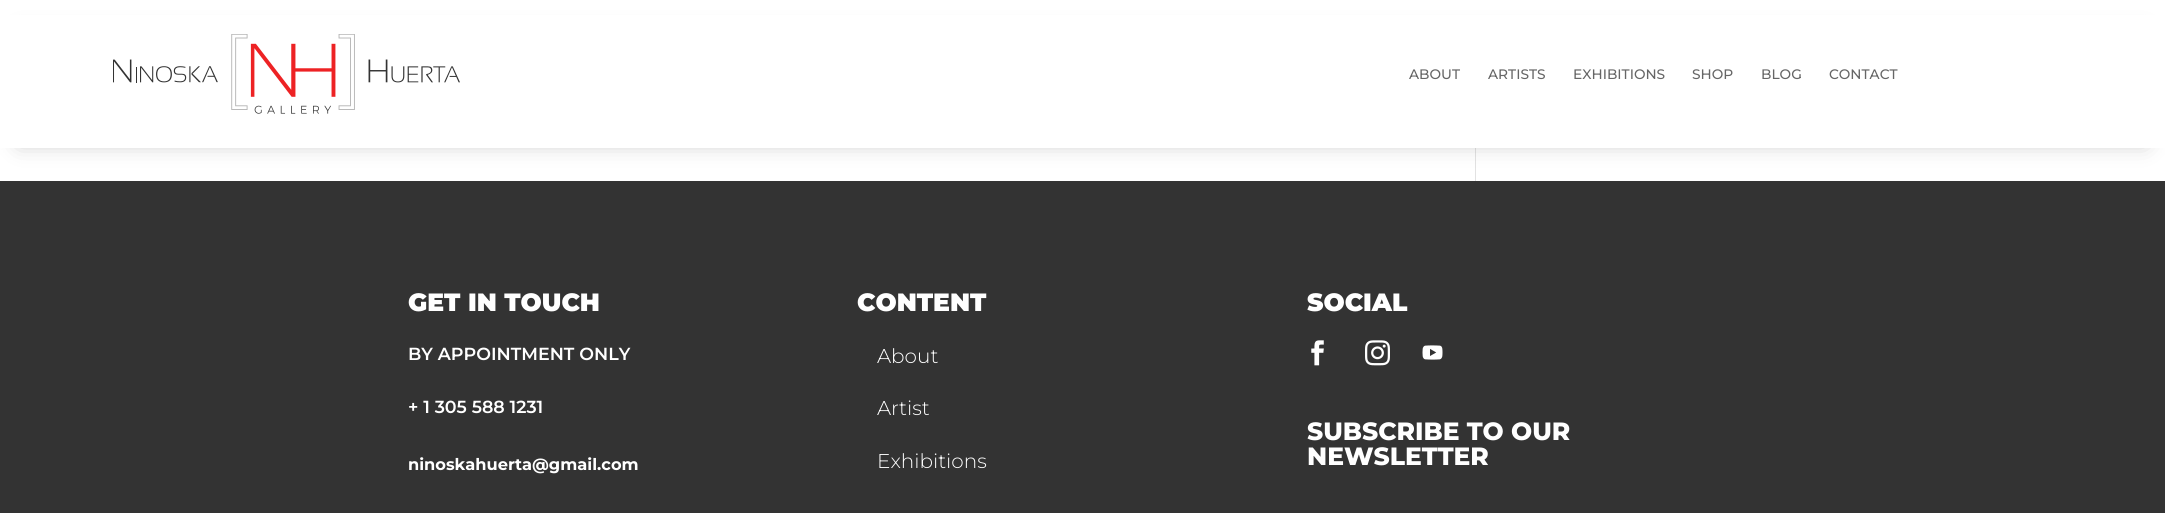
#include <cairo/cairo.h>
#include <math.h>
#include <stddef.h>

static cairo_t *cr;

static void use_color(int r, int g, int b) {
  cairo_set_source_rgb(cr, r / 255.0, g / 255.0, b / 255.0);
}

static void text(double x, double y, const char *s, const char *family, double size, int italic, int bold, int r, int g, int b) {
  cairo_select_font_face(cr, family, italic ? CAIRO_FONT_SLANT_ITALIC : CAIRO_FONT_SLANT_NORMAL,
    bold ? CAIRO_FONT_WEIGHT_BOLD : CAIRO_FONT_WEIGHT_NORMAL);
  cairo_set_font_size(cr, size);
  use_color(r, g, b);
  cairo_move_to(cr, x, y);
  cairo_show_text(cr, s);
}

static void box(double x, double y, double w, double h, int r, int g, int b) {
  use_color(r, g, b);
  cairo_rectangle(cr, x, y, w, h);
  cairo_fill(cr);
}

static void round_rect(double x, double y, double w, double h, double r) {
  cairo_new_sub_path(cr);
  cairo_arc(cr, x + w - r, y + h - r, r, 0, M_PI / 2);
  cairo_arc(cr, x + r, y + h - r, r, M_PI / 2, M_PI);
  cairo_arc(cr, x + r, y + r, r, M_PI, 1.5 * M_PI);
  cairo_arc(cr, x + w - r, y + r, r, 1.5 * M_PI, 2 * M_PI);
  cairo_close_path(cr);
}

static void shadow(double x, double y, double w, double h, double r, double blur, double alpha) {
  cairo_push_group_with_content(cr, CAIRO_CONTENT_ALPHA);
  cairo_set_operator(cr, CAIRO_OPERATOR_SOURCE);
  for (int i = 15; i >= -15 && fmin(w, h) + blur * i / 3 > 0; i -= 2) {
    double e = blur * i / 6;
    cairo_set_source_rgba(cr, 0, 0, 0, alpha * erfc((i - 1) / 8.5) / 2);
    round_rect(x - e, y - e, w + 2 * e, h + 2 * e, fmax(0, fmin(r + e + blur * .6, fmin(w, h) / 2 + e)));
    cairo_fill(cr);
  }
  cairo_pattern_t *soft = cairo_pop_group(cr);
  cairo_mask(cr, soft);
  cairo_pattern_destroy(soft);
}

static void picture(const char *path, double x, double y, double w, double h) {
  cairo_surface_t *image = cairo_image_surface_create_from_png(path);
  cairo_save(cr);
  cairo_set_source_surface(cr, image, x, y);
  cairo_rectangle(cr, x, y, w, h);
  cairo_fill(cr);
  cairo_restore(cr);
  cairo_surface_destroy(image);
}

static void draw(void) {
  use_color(255, 255, 255);
  cairo_paint(cr);
  box(1475, 148, 1, 33, 226, 226, 226);
  use_color(0, 0, 0);
  shadow(19, 34, 2127, 110, 0, 11, 0.22);
  box(0, 15, 2165, 133, 255, 255, 255);
  picture("img_01.png", 113, 34, 347, 80);
  box(0, 181, 2165, 332, 51, 51, 51);
  picture("img_02.png", 1311, 340, 13, 26);
  picture("img_03.png", 1365, 340, 25, 26);
  picture("img_04.png", 1422, 345, 21, 15);
  text(1409, 79, "ABOUT", "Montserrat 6 Thin", 13.75, 0, 0, 102, 102, 102);
  text(1488, 79, "ARTISTS", "Montserrat 6 Thin", 13.75, 0, 0, 102, 102, 102);
  text(1573, 79, "EXHIBITIONS", "Montserrat 6 Thin", 13.75, 0, 0, 102, 102, 102);
  text(1692, 79, "SHOP", "Montserrat 6 Thin", 13.75, 0, 0, 102, 102, 102);
  text(1761, 79, "BLOG", "Montserrat 6 Thin", 13.75, 0, 0, 102, 102, 102);
  text(1829, 79, "CONTACT", "Montserrat 6 Thin", 13.75, 0, 0, 102, 102, 102);
  text(408, 311, "GET IN TOUCH", "Montserrat Thin", 25, 0, 0, 255, 255, 255);
  text(408, 360, "BY APPOINTMENT ONLY", "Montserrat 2 Thin", 17.5, 0, 0, 255, 255, 255);
  text(408, 413, "+ 1 305 588 1231", "Montserrat 2 Thin", 17.5, 0, 0, 255, 255, 255);
  text(408, 470, "ninoskahuerta@gmail.com", "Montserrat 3 Thin", 16.25, 0, 0, 255, 255, 255);
  text(857, 311, "CONTENT", "Montserrat Thin", 25, 0, 0, 255, 255, 255);
  text(877, 363, "About", "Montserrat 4 Thin", 20, 0, 0, 255, 255, 255);
  text(877, 415, "Artist", "Montserrat 4 Thin", 20, 0, 0, 255, 255, 255);
  text(877, 468, "Exhibitions", "Montserrat 4 Thin", 20, 0, 0, 255, 255, 255);
  text(1307, 311, "SOCIAL", "Montserrat Thin", 25, 0, 0, 255, 255, 255);
  text(1307, 440, "SUBSCRIBE TO OUR", "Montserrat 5 Thin", 25, 0, 0, 255, 255, 255);
  text(1307, 465, "NEWSLETTER", "Montserrat 5 Thin", 25, 0, 0, 255, 255, 255);
}

int main(void) {
  cairo_surface_t *surface = cairo_image_surface_create(CAIRO_FORMAT_RGB24, 2165, 513);
  cr = cairo_create(surface);
  cairo_font_options_t *options = cairo_font_options_create();
  cairo_font_options_set_hint_metrics(options, CAIRO_HINT_METRICS_OFF);
  cairo_font_options_set_hint_style(options, CAIRO_HINT_STYLE_NONE);
  cairo_set_font_options(cr, options);
  cairo_set_miter_limit(cr, 4);
  draw();
  cairo_surface_write_to_png(surface, "out.png");
  cairo_font_options_destroy(options);
  cairo_destroy(cr);
  cairo_surface_destroy(surface);
  return 0;
}
